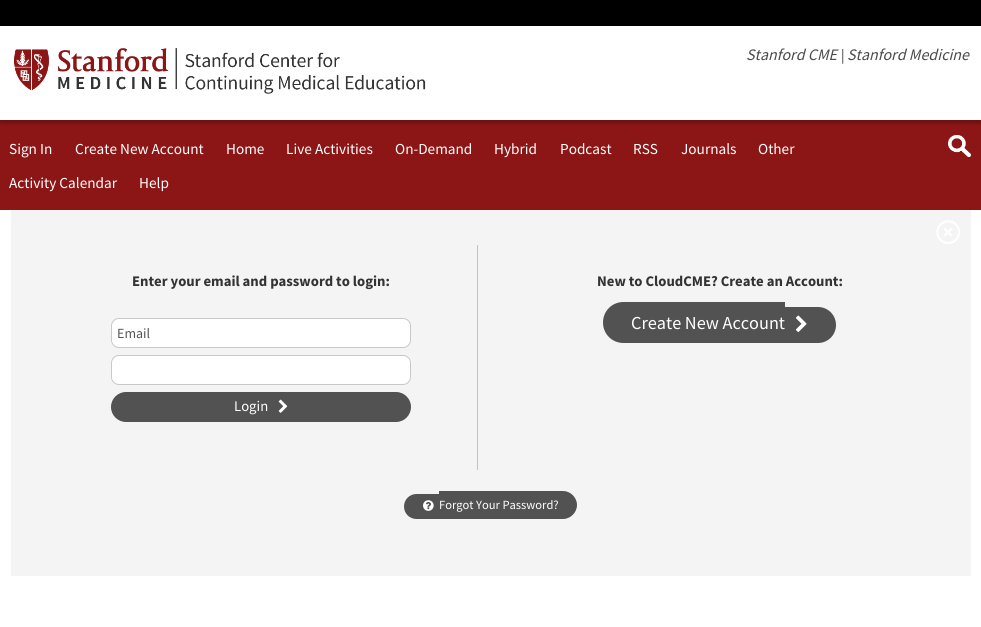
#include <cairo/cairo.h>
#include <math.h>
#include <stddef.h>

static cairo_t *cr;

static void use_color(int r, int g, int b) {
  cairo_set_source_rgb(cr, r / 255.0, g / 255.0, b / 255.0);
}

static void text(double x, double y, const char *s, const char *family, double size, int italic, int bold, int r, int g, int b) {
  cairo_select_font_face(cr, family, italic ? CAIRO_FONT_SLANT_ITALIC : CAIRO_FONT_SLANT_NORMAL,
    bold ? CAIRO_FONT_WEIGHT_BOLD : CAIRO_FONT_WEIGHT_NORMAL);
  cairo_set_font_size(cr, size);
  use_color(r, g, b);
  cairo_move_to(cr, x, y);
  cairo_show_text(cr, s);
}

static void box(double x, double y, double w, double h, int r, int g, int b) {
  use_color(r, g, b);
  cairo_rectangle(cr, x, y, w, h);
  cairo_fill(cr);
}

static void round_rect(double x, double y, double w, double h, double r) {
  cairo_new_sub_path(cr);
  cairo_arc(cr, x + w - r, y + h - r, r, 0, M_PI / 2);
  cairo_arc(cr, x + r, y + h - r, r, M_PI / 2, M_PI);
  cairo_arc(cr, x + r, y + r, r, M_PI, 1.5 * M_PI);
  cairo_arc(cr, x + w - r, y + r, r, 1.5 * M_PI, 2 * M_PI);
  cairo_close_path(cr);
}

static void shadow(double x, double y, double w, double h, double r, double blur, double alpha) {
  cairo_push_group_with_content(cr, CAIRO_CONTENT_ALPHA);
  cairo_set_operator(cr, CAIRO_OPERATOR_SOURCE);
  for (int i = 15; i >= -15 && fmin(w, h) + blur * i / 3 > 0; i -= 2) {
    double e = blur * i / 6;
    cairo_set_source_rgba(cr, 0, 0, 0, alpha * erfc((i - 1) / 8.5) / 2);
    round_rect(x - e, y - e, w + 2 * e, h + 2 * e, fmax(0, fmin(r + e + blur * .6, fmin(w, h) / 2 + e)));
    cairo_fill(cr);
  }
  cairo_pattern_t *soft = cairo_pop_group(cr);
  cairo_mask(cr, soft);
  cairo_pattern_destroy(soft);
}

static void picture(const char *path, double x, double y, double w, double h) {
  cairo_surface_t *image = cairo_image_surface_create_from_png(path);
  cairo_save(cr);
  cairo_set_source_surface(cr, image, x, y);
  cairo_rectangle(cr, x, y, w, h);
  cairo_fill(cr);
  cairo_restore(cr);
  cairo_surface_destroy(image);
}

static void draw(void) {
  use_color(255, 255, 255);
  cairo_paint(cr);
  box(0, 120, 981, 90, 140, 21, 21);
  cairo_save(cr);
  cairo_rectangle(cr, 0, 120, 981, 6);
  cairo_clip(cr);
  use_color(0, 0, 0);
  shadow(0, 3, 981, 120, 0, 2, 0.25);
  cairo_restore(cr);
  box(0, 0, 981, 26, 0, 0, 0);
  picture("img_01.png", 14, 48, 412, 46);
  picture("img_02.png", 948, 135, 23, 22);
  box(11, 210, 960, 366, 244, 244, 244);
  picture("img_03.png", 936, 220, 24, 24);
  box(477, 245, 1, 225, 195, 195, 195);
  use_color(255, 255, 255);
  round_rect(111.5, 318.5, 299, 29, 7.5);
  cairo_fill_preserve(cr);
  use_color(200, 200, 200);
  cairo_set_line_width(cr, 1);
  cairo_stroke(cr);
  use_color(255, 255, 255);
  round_rect(111.5, 355.5, 299, 29, 7.5);
  cairo_fill_preserve(cr);
  use_color(200, 200, 200);
  cairo_stroke(cr);
  use_color(82, 82, 82);
  round_rect(111, 392, 300, 30, 15);
  cairo_fill(cr);
  picture("img_04.png", 278, 399, 10, 14);
  cairo_new_path(cr);
  cairo_move_to(cr, 623.5, 302);
  cairo_line_to(cr, 785, 302);
  cairo_line_to(cr, 785, 343);
  cairo_line_to(cr, 623.5, 343);
  cairo_curve_to(cr, 612, 343, 603, 334, 603, 322.5);
  cairo_curve_to(cr, 603, 311, 612, 302, 623.5, 302);
  cairo_close_path(cr);
  cairo_fill(cr);
  cairo_new_path(cr);
  cairo_move_to(cr, 785, 307);
  cairo_line_to(cr, 818, 307);
  cairo_curve_to(cr, 828, 307, 836, 315, 836, 325);
  cairo_curve_to(cr, 836, 335, 828, 343, 818, 343);
  cairo_line_to(cr, 785, 343);
  cairo_close_path(cr);
  cairo_fill(cr);
  picture("img_05.png", 796, 315, 11, 17);
  cairo_new_path(cr);
  cairo_move_to(cr, 416.5, 494);
  cairo_line_to(cr, 439, 494);
  cairo_line_to(cr, 439, 519);
  cairo_line_to(cr, 416.5, 519);
  cairo_curve_to(cr, 409.5, 519, 404, 513.5, 404, 506.5);
  cairo_curve_to(cr, 404, 499.5, 409.5, 494, 416.5, 494);
  cairo_close_path(cr);
  cairo_fill(cr);
  cairo_new_path(cr);
  cairo_move_to(cr, 439, 491);
  cairo_line_to(cr, 563, 491);
  cairo_curve_to(cr, 570.5, 491, 577, 497.5, 577, 505);
  cairo_curve_to(cr, 577, 512.5, 570.5, 519, 563, 519);
  cairo_line_to(cr, 439, 519);
  cairo_close_path(cr);
  cairo_fill(cr);
  picture("img_06.png", 423, 500, 11, 11);
  text(746, 60, "Stanford CME", "Source Sans Pro", 16, 1, 0, 75, 75, 75);
  text(841, 60, "|", "Source Sans Pro", 14.7, 0, 0, 51, 51, 51);
  text(847, 60, "Stanford Medicine", "Source Sans Pro", 16, 1, 0, 75, 75, 75);
  text(9, 154, "Sign In", "Source Sans Pro", 15.25, 0, 0, 255, 255, 255);
  text(75, 154, "Create New Account", "Source Sans Pro", 15.25, 0, 0, 255, 255, 255);
  text(226, 154, "Home", "Source Sans Pro", 15.25, 0, 0, 255, 255, 255);
  text(286, 154, "Live Activities", "Source Sans Pro", 15.25, 0, 0, 255, 255, 255);
  text(395, 154, "On-Demand", "Source Sans Pro", 15.25, 0, 0, 255, 255, 255);
  text(494, 154, "Hybrid", "Source Sans Pro", 15.25, 0, 0, 255, 255, 255);
  text(560, 154, "Podcast", "Source Sans Pro", 15.25, 0, 0, 255, 255, 255);
  text(633, 154, "RSS", "Source Sans Pro", 15.25, 0, 0, 255, 255, 255);
  text(681, 154, "Journals", "Source Sans Pro", 15.25, 0, 0, 255, 255, 255);
  text(758, 154, "Other", "Source Sans Pro", 15.25, 0, 0, 255, 255, 255);
  text(9, 188, "Activity Calendar", "Source Sans Pro", 15.25, 0, 0, 255, 255, 255);
  text(139, 188, "Help", "Source Sans Pro", 15.25, 0, 0, 255, 255, 255);
  text(132, 286, "Enter your email and password to login:", "Source Sans Pro", 14.7, 0, 1, 51, 51, 51);
  text(117, 338, "Email", "Source Sans Pro", 14, 0, 0, 85, 85, 85);
  text(234, 411, "Login", "Source Sans Pro", 14.7, 0, 0, 255, 255, 255);
  text(597, 286, "New to CloudCME? Create an Account:", "Source Sans Pro", 14.7, 0, 1, 51, 51, 51);
  text(631, 329, "Create New Account", "Source Sans Pro", 18.25, 0, 0, 255, 255, 255);
  text(439, 509, "Forgot Your Password?", "Source Sans Pro", 12.5, 0, 0, 255, 255, 255);
}

int main(void) {
  cairo_surface_t *surface = cairo_image_surface_create(CAIRO_FORMAT_RGB24, 981, 627);
  cr = cairo_create(surface);
  cairo_font_options_t *options = cairo_font_options_create();
  cairo_font_options_set_hint_metrics(options, CAIRO_HINT_METRICS_OFF);
  cairo_font_options_set_hint_style(options, CAIRO_HINT_STYLE_NONE);
  cairo_set_font_options(cr, options);
  cairo_set_miter_limit(cr, 4);
  draw();
  cairo_surface_write_to_png(surface, "out.png");
  cairo_font_options_destroy(options);
  cairo_destroy(cr);
  cairo_surface_destroy(surface);
  return 0;
}
